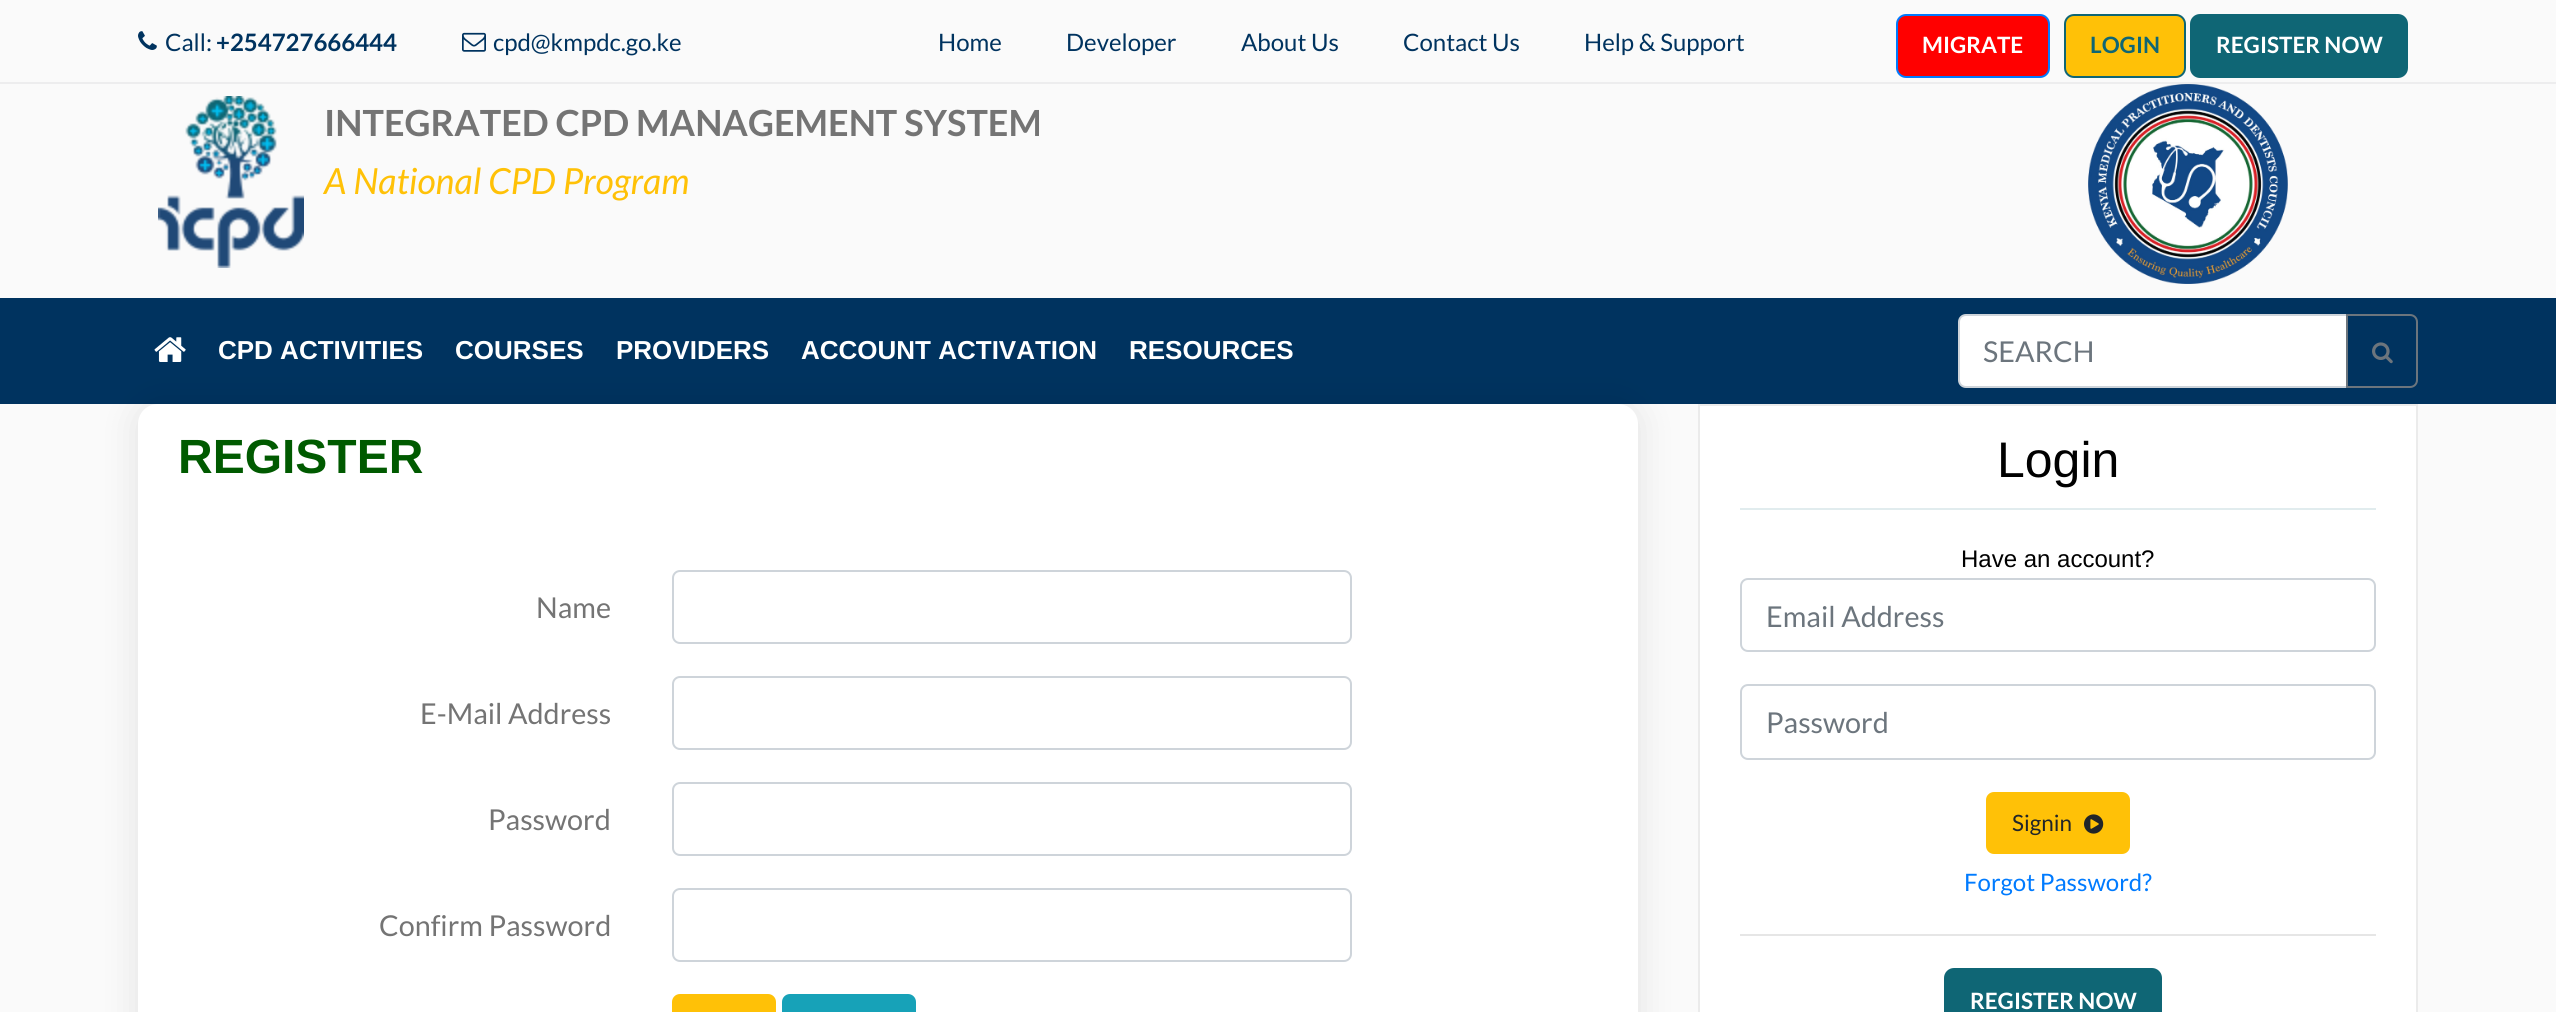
#include <cairo/cairo.h>
#include <math.h>
#include <stddef.h>

static cairo_t *cr;

static void use_color(int r, int g, int b) {
  cairo_set_source_rgb(cr, r / 255.0, g / 255.0, b / 255.0);
}

static void text(double x, double y, const char *s, const char *family, double size, int italic, int bold, int r, int g, int b) {
  cairo_select_font_face(cr, family, italic ? CAIRO_FONT_SLANT_ITALIC : CAIRO_FONT_SLANT_NORMAL,
    bold ? CAIRO_FONT_WEIGHT_BOLD : CAIRO_FONT_WEIGHT_NORMAL);
  cairo_set_font_size(cr, size);
  use_color(r, g, b);
  cairo_move_to(cr, x, y);
  cairo_show_text(cr, s);
}

static void box(double x, double y, double w, double h, int r, int g, int b) {
  use_color(r, g, b);
  cairo_rectangle(cr, x, y, w, h);
  cairo_fill(cr);
}

static void round_rect(double x, double y, double w, double h, double r) {
  cairo_new_sub_path(cr);
  cairo_arc(cr, x + w - r, y + h - r, r, 0, M_PI / 2);
  cairo_arc(cr, x + r, y + h - r, r, M_PI / 2, M_PI);
  cairo_arc(cr, x + r, y + r, r, M_PI, 1.5 * M_PI);
  cairo_arc(cr, x + w - r, y + r, r, 1.5 * M_PI, 2 * M_PI);
  cairo_close_path(cr);
}

static void shadow(double x, double y, double w, double h, double r, double blur, double alpha) {
  cairo_push_group_with_content(cr, CAIRO_CONTENT_ALPHA);
  cairo_set_operator(cr, CAIRO_OPERATOR_SOURCE);
  for (int i = 15; i >= -15 && fmin(w, h) + blur * i / 3 > 0; i -= 2) {
    double e = blur * i / 6;
    cairo_set_source_rgba(cr, 0, 0, 0, alpha * erfc((i - 1) / 8.5) / 2);
    round_rect(x - e, y - e, w + 2 * e, h + 2 * e, fmax(0, fmin(r + e + blur * .6, fmin(w, h) / 2 + e)));
    cairo_fill(cr);
  }
  cairo_pattern_t *soft = cairo_pop_group(cr);
  cairo_mask(cr, soft);
  cairo_pattern_destroy(soft);
}

static void picture(const char *path, double x, double y, double w, double h) {
  cairo_surface_t *image = cairo_image_surface_create_from_png(path);
  cairo_save(cr);
  cairo_set_source_surface(cr, image, x, y);
  cairo_rectangle(cr, x, y, w, h);
  cairo_fill(cr);
  cairo_restore(cr);
  cairo_surface_destroy(image);
}

static void draw(void) {
  use_color(250, 250, 250);
  cairo_paint(cr);
  box(0, 82, 2556, 2, 237, 237, 238);
  picture("img_01.png", 138, 31, 19, 19);
  picture("img_02.png", 462, 32, 24, 20);
  use_color(255, 0, 0);
  round_rect(1897, 15, 152, 62, 9);
  cairo_fill_preserve(cr);
  use_color(0, 123, 255);
  cairo_stroke(cr);
  use_color(255, 193, 7);
  round_rect(2065, 15, 120, 62, 9);
  cairo_fill_preserve(cr);
  use_color(15, 102, 117);
  cairo_stroke(cr);
  round_rect(2190, 14, 218, 64, 10);
  cairo_fill(cr);
  picture("img_03.png", 158, 96, 146, 172);
  picture("img_04.png", 2088, 84, 200, 200);
  box(0, 298, 2556, 106, 0, 51, 95);
  picture("img_05.png", 154, 337, 32, 25);
  use_color(255, 255, 255);
  cairo_new_path(cr);
  cairo_move_to(cr, 1966, 315);
  cairo_line_to(cr, 2347, 315);
  cairo_line_to(cr, 2347, 387);
  cairo_line_to(cr, 1966, 387);
  cairo_curve_to(cr, 1962, 387, 1959, 384, 1959, 380);
  cairo_line_to(cr, 1959, 322);
  cairo_curve_to(cr, 1959, 318, 1962, 315, 1966, 315);
  cairo_close_path(cr);
  cairo_fill_preserve(cr);
  use_color(206, 212, 218);
  cairo_stroke(cr);
  cairo_new_path(cr);
  cairo_move_to(cr, 2347, 315);
  cairo_line_to(cr, 2410, 315);
  cairo_curve_to(cr, 2414, 315, 2417, 318, 2417, 322);
  cairo_line_to(cr, 2417, 380);
  cairo_curve_to(cr, 2417, 384, 2414, 387, 2410, 387);
  cairo_line_to(cr, 2347, 387);
  cairo_close_path(cr);
  use_color(108, 117, 125);
  cairo_stroke(cr);
  picture("img_06.png", 2372, 342, 21, 22);
  use_color(0, 0, 0);
  shadow(138, 404, 1500, 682, 20, 18, 0.1);
  use_color(255, 255, 255);
  round_rect(138, 404, 1500, 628, 20);
  cairo_fill(cr);
  round_rect(673, 571, 678, 72, 7);
  use_color(206, 212, 218);
  cairo_stroke(cr);
  round_rect(673, 677, 678, 72, 7);
  cairo_stroke(cr);
  round_rect(673, 783, 678, 72, 7);
  cairo_stroke(cr);
  round_rect(673, 889, 678, 72, 7);
  cairo_stroke(cr);
  use_color(255, 193, 7);
  round_rect(673, 995, 102, 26, 7);
  cairo_fill_preserve(cr);
  cairo_stroke(cr);
  use_color(23, 162, 184);
  round_rect(783, 995, 132, 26, 7);
  cairo_fill_preserve(cr);
  cairo_stroke(cr);
  use_color(255, 255, 255);
  cairo_rectangle(cr, 1699, 405, 718, 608);
  cairo_fill_preserve(cr);
  use_color(235, 235, 235);
  cairo_stroke(cr);
  box(1740, 508, 636, 2, 225, 236, 238);
  round_rect(1741, 579, 634, 72, 7);
  use_color(206, 212, 218);
  cairo_stroke(cr);
  round_rect(1741, 685, 634, 74, 7);
  cairo_stroke(cr);
  use_color(255, 193, 7);
  round_rect(1987, 793, 142, 60, 7);
  cairo_fill_preserve(cr);
  cairo_stroke(cr);
  picture("img_07.png", 2084, 814, 20, 20);
  box(1740, 934, 636, 2, 230, 230, 230);
  use_color(15, 102, 117);
  round_rect(1944, 968, 218, 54, 10);
  cairo_fill(cr);
  text(165, 51, "Call:", "Lato", 24, 0, 0, 0, 51, 95);
  text(216, 51, "+254727666444", "Lato", 24, 0, 1, 0, 51, 95);
  text(493, 51, "cpd@kmpdc.go.ke", "Lato", 24, 0, 0, 0, 51, 95);
  text(938, 51, "Home", "Lato", 24, 0, 0, 0, 51, 95);
  text(1066, 51, "Developer", "Lato", 24, 0, 0, 0, 51, 95);
  text(1241, 51, "About Us", "Lato", 24, 0, 0, 0, 51, 95);
  text(1403, 51, "Contact Us", "Lato", 24, 0, 0, 0, 51, 95);
  text(1584, 51, "Help & Support", "Lato", 24, 0, 0, 0, 51, 95);
  text(1922, 53, "MIGRATE", "Lato", 22.5, 0, 1, 255, 255, 255);
  text(2090, 53, "LOGIN", "Lato", 22.5, 0, 1, 15, 102, 117);
  text(2216, 53, "REGISTER NOW", "Lato", 22.5, 0, 1, 255, 255, 255);
  text(324, 136, "INTEGRATED CPD MANAGEMENT SYSTEM", "Lato", 36, 0, 1, 116, 116, 116);
  text(324, 194, "A National CPD Program", "Lato", 36, 1, 0, 255, 193, 7);
  text(218, 359, "CPD ACTIVITIES", "Liberation Sans", 26, 0, 1, 255, 255, 255);
  text(455, 359, "COURSES", "Liberation Sans", 26, 0, 1, 255, 255, 255);
  text(616, 359, "PROVIDERS", "Liberation Sans", 26, 0, 1, 255, 255, 255);
  text(801, 359, "ACCOUNT ACTIVATION", "Liberation Sans", 26, 0, 1, 255, 255, 255);
  text(1129, 359, "RESOURCES", "Liberation Sans", 26, 0, 1, 255, 255, 255);
  text(1983, 362, "SEARCH", "Lato", 28.75, 0, 0, 108, 117, 125);
  text(178, 473, "REGISTER", "Liberation Sans", 48, 0, 1, 0, 90, 0);
  text(536, 618, "Name", "Lato", 28.75, 0, 0, 116, 116, 116);
  text(420, 724, "E-Mail Address", "Lato", 28.75, 0, 0, 116, 116, 116);
  text(488, 830, "Password", "Lato", 28.75, 0, 0, 116, 116, 116);
  text(379, 936, "Confirm Password", "Lato", 28.75, 0, 0, 116, 116, 116);
  text(1997, 477, "Login", "Liberation Sans", 50, 0, 0, 0, 0, 0);
  text(1961, 567, "Have an account?", "Liberation Sans", 24, 0, 0, 0, 0, 0);
  text(1766, 627, "Email Address", "Lato", 28.75, 0, 0, 108, 117, 125);
  text(1766, 733, "Password", "Lato", 28.75, 0, 0, 108, 117, 125);
  text(2012, 831, "Signin", "Lato", 22.5, 0, 0, 33, 37, 41);
  text(1964, 891, "Forgot Password?", "Lato", 24, 0, 0, 0, 123, 255);
  text(1970, 1009, "REGISTER NOW", "Lato", 22.5, 0, 1, 255, 255, 255);
}

int main(void) {
  cairo_surface_t *surface = cairo_image_surface_create(CAIRO_FORMAT_RGB24, 2556, 1012);
  cr = cairo_create(surface);
  cairo_font_options_t *options = cairo_font_options_create();
  cairo_font_options_set_hint_metrics(options, CAIRO_HINT_METRICS_OFF);
  cairo_font_options_set_hint_style(options, CAIRO_HINT_STYLE_NONE);
  cairo_set_font_options(cr, options);
  cairo_set_miter_limit(cr, 4);
  draw();
  cairo_surface_write_to_png(surface, "out.png");
  cairo_font_options_destroy(options);
  cairo_destroy(cr);
  cairo_surface_destroy(surface);
  return 0;
}
